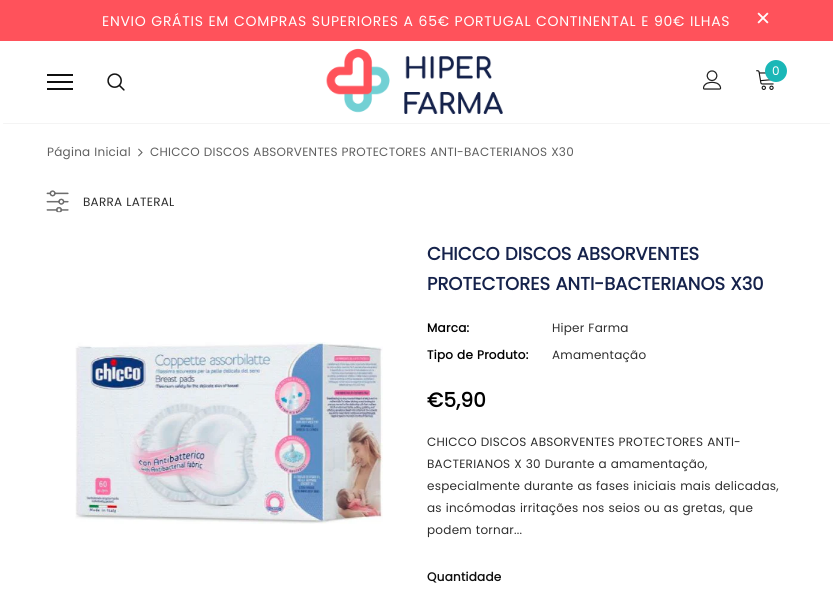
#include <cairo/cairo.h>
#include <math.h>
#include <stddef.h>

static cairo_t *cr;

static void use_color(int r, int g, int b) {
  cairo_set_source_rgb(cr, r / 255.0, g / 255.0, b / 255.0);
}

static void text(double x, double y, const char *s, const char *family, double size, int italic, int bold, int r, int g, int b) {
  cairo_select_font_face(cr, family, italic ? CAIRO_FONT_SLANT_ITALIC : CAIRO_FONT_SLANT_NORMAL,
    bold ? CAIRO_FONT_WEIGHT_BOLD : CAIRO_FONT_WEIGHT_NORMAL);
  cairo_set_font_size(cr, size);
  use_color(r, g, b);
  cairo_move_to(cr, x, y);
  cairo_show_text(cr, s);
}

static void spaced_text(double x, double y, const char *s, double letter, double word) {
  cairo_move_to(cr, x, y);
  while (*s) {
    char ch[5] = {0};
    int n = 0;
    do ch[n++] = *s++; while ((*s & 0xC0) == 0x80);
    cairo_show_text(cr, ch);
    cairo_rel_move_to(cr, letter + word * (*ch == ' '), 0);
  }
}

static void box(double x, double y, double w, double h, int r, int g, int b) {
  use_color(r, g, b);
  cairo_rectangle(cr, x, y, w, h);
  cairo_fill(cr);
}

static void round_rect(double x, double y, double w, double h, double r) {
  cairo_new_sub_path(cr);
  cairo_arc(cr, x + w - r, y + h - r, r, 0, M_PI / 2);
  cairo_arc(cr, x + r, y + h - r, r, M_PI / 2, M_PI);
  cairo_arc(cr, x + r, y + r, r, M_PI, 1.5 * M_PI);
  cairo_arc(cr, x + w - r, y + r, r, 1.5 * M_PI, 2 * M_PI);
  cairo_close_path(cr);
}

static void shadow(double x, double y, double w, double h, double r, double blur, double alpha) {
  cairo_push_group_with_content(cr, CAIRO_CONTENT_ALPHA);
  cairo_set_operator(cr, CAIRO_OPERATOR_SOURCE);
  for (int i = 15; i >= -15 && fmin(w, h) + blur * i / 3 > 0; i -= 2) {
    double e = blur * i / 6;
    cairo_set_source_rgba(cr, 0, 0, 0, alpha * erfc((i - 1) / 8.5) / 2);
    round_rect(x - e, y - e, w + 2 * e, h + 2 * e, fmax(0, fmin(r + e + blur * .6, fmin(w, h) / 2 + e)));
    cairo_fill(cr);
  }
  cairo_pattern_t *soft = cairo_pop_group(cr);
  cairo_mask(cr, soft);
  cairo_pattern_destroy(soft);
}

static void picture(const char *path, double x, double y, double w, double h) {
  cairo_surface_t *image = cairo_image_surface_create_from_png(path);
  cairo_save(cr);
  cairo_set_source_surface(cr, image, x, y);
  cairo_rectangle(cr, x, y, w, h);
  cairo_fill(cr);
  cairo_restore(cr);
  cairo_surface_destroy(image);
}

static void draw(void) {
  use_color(255, 255, 255);
  cairo_paint(cr);
  box(0, 0, 833, 41, 255, 82, 91);
  picture("img_01.png", 757, 12, 12, 12);
  cairo_save(cr);
  cairo_rectangle(cr, 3, 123, 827, 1);
  cairo_clip(cr);
  use_color(0, 0, 0);
  shadow(3, 47, 827, 76, 0, 1.5, 0.12);
  cairo_restore(cr);
  picture("img_02.png", 326, 48, 177, 66);
  picture("img_03.png", 703, 70, 19, 20);
  picture("img_04.png", 756, 70, 18, 20);
  use_color(26, 183, 183);
  cairo_arc(cr, 776, 71, 11, 0, 2 * M_PI);
  cairo_fill(cr);
  box(47, 81, 26, 2, 15, 15, 15);
  box(47, 74, 26, 2, 15, 15, 15);
  box(47, 88, 26, 2, 15, 15, 15);
  picture("img_05.png", 107, 73, 18, 18);
  picture("img_06.png", 138, 148, 5, 9);
  picture("img_07.png", 46, 190, 23, 23);
  picture("img_08.png", 75, 342, 308, 182);
  cairo_select_font_face(cr, "Poppins", CAIRO_FONT_SLANT_NORMAL, CAIRO_FONT_WEIGHT_NORMAL);
  cairo_set_font_size(cr, 14);
  use_color(255, 255, 255);
  spaced_text(102, 26, "ENVIO GRÁTIS EM COMPRAS SUPERIORES A 65€ PORTUGAL CONTINENTAL E 90€ ILHAS", 0.7, 0);
  cairo_set_font_size(cr, 12);
  spaced_text(772, 75, "0", 0.25, 0);
  use_color(95, 95, 95);
  spaced_text(47, 156, "Página Inicial", 0.25, 0);
  spaced_text(150, 156, "CHICCO DISCOS ABSORVENTES PROTECTORES ANTI-BACTERIANOS X30", 0.25, 0);
  use_color(45, 45, 45);
  spaced_text(83, 206, "BARRA LATERAL", 0.25, 0);
  text(427, 260, "CHICCO DISCOS ABSORVENTES", "Poppins", 18, 0, 1, 21, 34, 75);
  text(427, 290, "PROTECTORES ANTI-BACTERIANOS X30", "Poppins", 18, 0, 1, 21, 34, 75);
  cairo_set_font_size(cr, 12);
  use_color(0, 0, 0);
  spaced_text(427, 332, "Marca:", 0.25, 0);
  cairo_select_font_face(cr, "Poppins", CAIRO_FONT_SLANT_NORMAL, CAIRO_FONT_WEIGHT_NORMAL);
  use_color(45, 45, 45);
  spaced_text(552, 332, "Hiper Farma", 0.25, 0);
  cairo_select_font_face(cr, "Poppins", CAIRO_FONT_SLANT_NORMAL, CAIRO_FONT_WEIGHT_BOLD);
  use_color(0, 0, 0);
  spaced_text(427, 359, "Tipo de Produto:", 0.25, 0);
  cairo_select_font_face(cr, "Poppins", CAIRO_FONT_SLANT_NORMAL, CAIRO_FONT_WEIGHT_NORMAL);
  use_color(45, 45, 45);
  spaced_text(552, 359, "Amamentação", 0.25, 0);
  cairo_select_font_face(cr, "Poppins", CAIRO_FONT_SLANT_NORMAL, CAIRO_FONT_WEIGHT_BOLD);
  cairo_set_font_size(cr, 20);
  use_color(0, 0, 0);
  spaced_text(427, 407, "€5,90", 0.25, 0);
  cairo_select_font_face(cr, "Poppins", CAIRO_FONT_SLANT_NORMAL, CAIRO_FONT_WEIGHT_NORMAL);
  cairo_set_font_size(cr, 12);
  use_color(45, 45, 45);
  spaced_text(427, 446, "CHICCO DISCOS ABSORVENTES PROTECTORES ANTI-", 0.25, 0);
  spaced_text(427, 468, "BACTERIANOS X 30 Durante a amamentação,", 0.25, 0);
  spaced_text(427, 490, "especialmente durante as fases iniciais mais delicadas,", 0.25, 0);
  spaced_text(427, 512, "as incómodas irritações nos seios ou as gretas, que", 0.25, 0);
  spaced_text(427, 534, "podem tornar...", 0.25, 0);
  cairo_select_font_face(cr, "Poppins", CAIRO_FONT_SLANT_NORMAL, CAIRO_FONT_WEIGHT_BOLD);
  use_color(15, 15, 15);
  spaced_text(427, 581, "Quantidade", 0.25, 0);
}

int main(void) {
  cairo_surface_t *surface = cairo_image_surface_create(CAIRO_FORMAT_RGB24, 833, 591);
  cr = cairo_create(surface);
  cairo_font_options_t *options = cairo_font_options_create();
  cairo_font_options_set_hint_metrics(options, CAIRO_HINT_METRICS_OFF);
  cairo_font_options_set_hint_style(options, CAIRO_HINT_STYLE_NONE);
  cairo_set_font_options(cr, options);
  cairo_set_miter_limit(cr, 4);
  draw();
  cairo_surface_write_to_png(surface, "out.png");
  cairo_font_options_destroy(options);
  cairo_destroy(cr);
  cairo_surface_destroy(surface);
  return 0;
}
